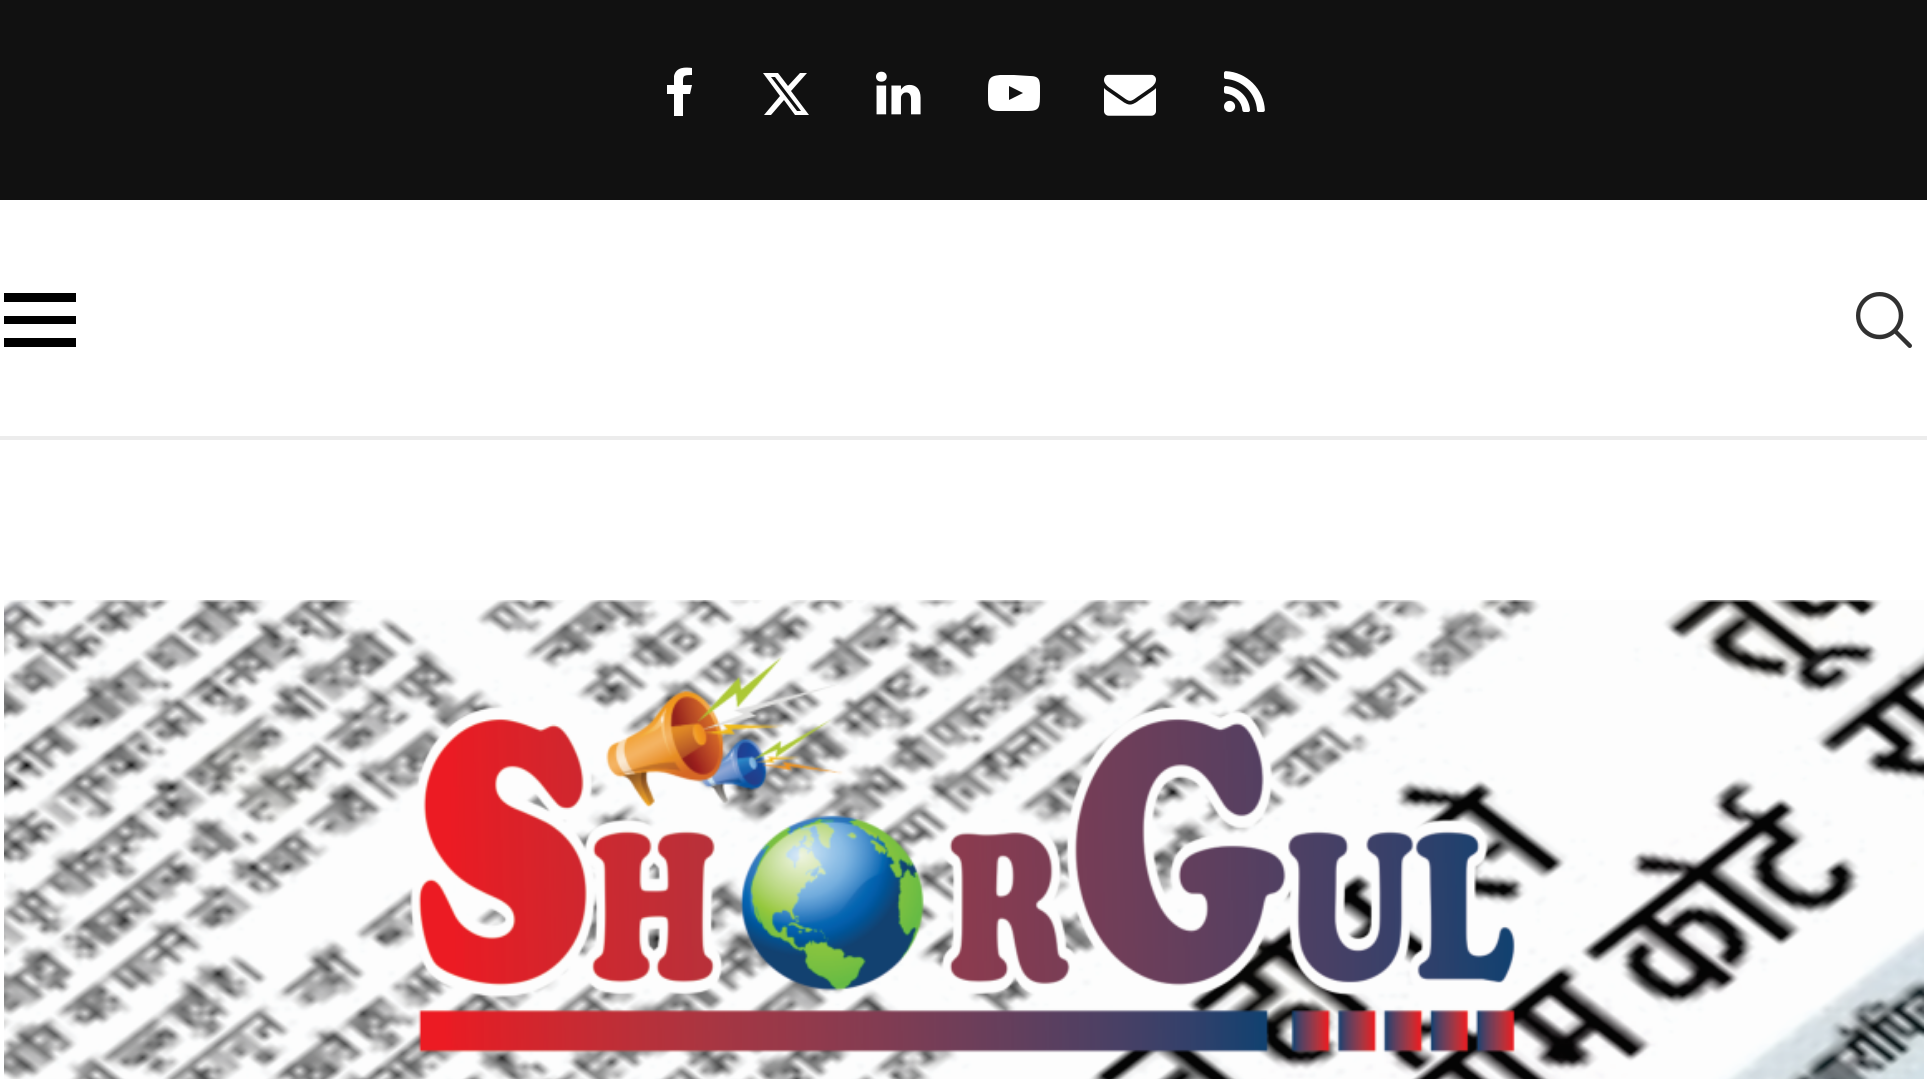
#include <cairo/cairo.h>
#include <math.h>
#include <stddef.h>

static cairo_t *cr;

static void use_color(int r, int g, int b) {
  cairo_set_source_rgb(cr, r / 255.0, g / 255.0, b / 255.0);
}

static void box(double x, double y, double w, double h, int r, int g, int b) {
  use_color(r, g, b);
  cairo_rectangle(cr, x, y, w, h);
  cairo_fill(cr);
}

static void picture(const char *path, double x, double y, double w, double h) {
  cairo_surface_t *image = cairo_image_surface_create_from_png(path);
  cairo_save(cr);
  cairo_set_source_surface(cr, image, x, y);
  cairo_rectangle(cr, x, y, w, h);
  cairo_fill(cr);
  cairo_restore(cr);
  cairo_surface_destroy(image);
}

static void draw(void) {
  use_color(255, 255, 255);
  cairo_paint(cr);
  box(0, 0, 1927, 200, 17, 17, 17);
  use_color(255, 255, 255);
  cairo_new_path(cr);
  cairo_move_to(cr, 692, 68);
  cairo_line_to(cr, 692, 75);
  cairo_curve_to(cr, 682, 75, 683, 76, 683, 85);
  cairo_line_to(cr, 692, 85);
  cairo_line_to(cr, 690, 94);
  cairo_line_to(cr, 683, 94);
  cairo_line_to(cr, 683, 116);
  cairo_line_to(cr, 674, 116);
  cairo_line_to(cr, 674, 94);
  cairo_line_to(cr, 667, 94);
  cairo_line_to(cr, 667, 85);
  cairo_line_to(cr, 674, 85);
  cairo_line_to(cr, 674, 76);
  cairo_curve_to(cr, 676, 67, 685, 67, 692, 68);
  cairo_close_path(cr);
  cairo_fill(cr);
  cairo_new_path(cr);
  cairo_move_to(cr, 800, 73);
  cairo_line_to(cr, 807, 73);
  cairo_line_to(cr, 791, 91);
  cairo_line_to(cr, 809, 115);
  cairo_line_to(cr, 795, 115);
  cairo_line_to(cr, 784, 100);
  cairo_line_to(cr, 771, 115);
  cairo_line_to(cr, 764, 115);
  cairo_line_to(cr, 780, 96);
  cairo_line_to(cr, 763, 73);
  cairo_line_to(cr, 778, 73);
  cairo_line_to(cr, 788, 86);
  cairo_close_path(cr);
  cairo_move_to(cr, 797, 111);
  cairo_line_to(cr, 801, 111);
  cairo_line_to(cr, 775, 77);
  cairo_line_to(cr, 771, 77);
  cairo_close_path(cr);
  cairo_fill(cr);
  picture("img_01.png", 876, 71, 45, 44);
  cairo_new_path(cr);
  cairo_move_to(cr, 1009, 100);
  cairo_line_to(cr, 1023, 93);
  cairo_line_to(cr, 1009, 86);
  cairo_close_path(cr);
  cairo_move_to(cr, 1014, 75);
  cairo_line_to(cr, 1030, 76);
  cairo_curve_to(cr, 1041, 76, 1040, 82, 1040, 93);
  cairo_curve_to(cr, 1040, 107, 1040, 111, 1028, 111);
  cairo_line_to(cr, 999, 111);
  cairo_curve_to(cr, 987, 111, 988, 104, 988, 93);
  cairo_curve_to(cr, 988, 80, 988, 76, 1000, 75);
  cairo_close_path(cr);
  cairo_fill(cr);
  picture("img_02.png", 1104, 74, 52, 42);
  picture("img_03.png", 1224, 71, 41, 41);
  box(0, 436, 1927, 4, 236, 236, 236);
  box(4, 293, 72, 9, 0, 0, 0);
  box(4, 316, 72, 8, 0, 0, 0);
  box(4, 338, 72, 9, 0, 0, 0);
  picture("img_04.png", 1856, 292, 56, 56);
  picture("img_05.png", 4, 600, 1920, 479);
}

int main(void) {
  cairo_surface_t *surface = cairo_image_surface_create(CAIRO_FORMAT_RGB24, 1927, 1079);
  cr = cairo_create(surface);
  cairo_font_options_t *options = cairo_font_options_create();
  cairo_font_options_set_hint_metrics(options, CAIRO_HINT_METRICS_OFF);
  cairo_font_options_set_hint_style(options, CAIRO_HINT_STYLE_NONE);
  cairo_set_font_options(cr, options);
  cairo_set_miter_limit(cr, 4);
  draw();
  cairo_surface_write_to_png(surface, "out.png");
  cairo_font_options_destroy(options);
  cairo_destroy(cr);
  cairo_surface_destroy(surface);
  return 0;
}
